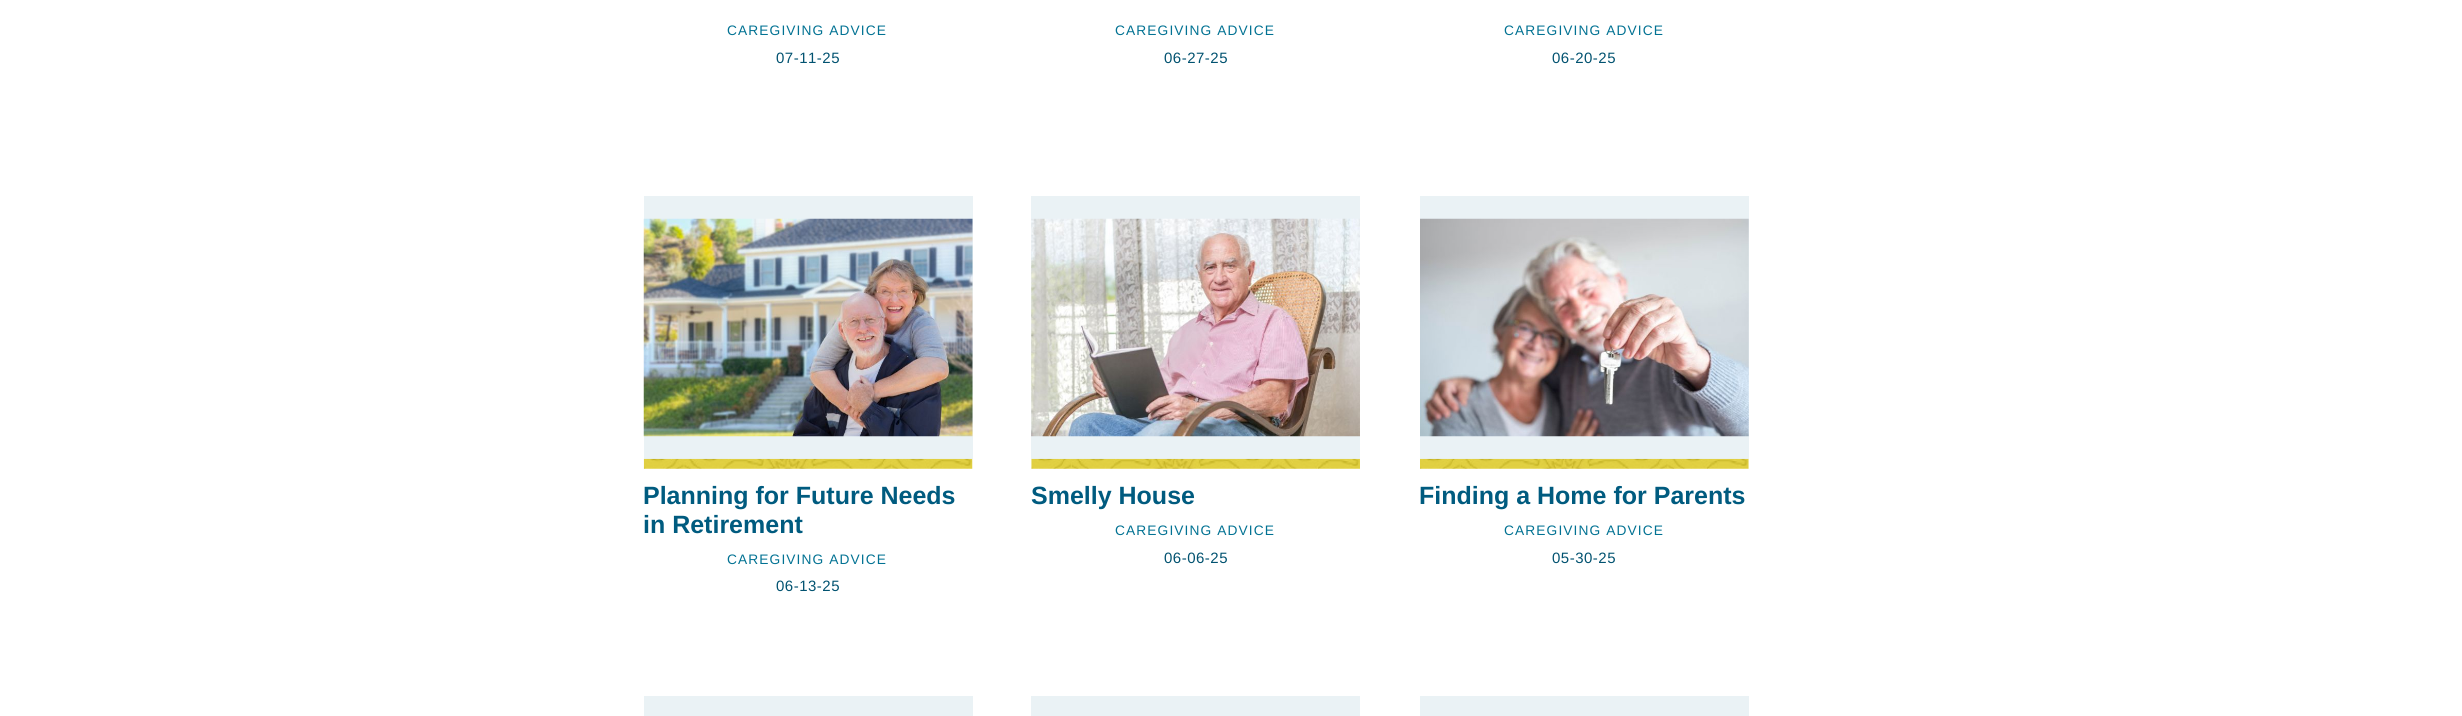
#include <cairo/cairo.h>
#include <math.h>
#include <stddef.h>

static cairo_t *cr;

static void use_color(int r, int g, int b) {
  cairo_set_source_rgb(cr, r / 255.0, g / 255.0, b / 255.0);
}

static void text(double x, double y, const char *s, const char *family, double size, int italic, int bold, int r, int g, int b) {
  cairo_select_font_face(cr, family, italic ? CAIRO_FONT_SLANT_ITALIC : CAIRO_FONT_SLANT_NORMAL,
    bold ? CAIRO_FONT_WEIGHT_BOLD : CAIRO_FONT_WEIGHT_NORMAL);
  cairo_set_font_size(cr, size);
  use_color(r, g, b);
  cairo_move_to(cr, x, y);
  cairo_show_text(cr, s);
}

static void spaced_text(double x, double y, const char *s, double letter, double word) {
  cairo_move_to(cr, x, y);
  while (*s) {
    char ch[5] = {0};
    int n = 0;
    do ch[n++] = *s++; while ((*s & 0xC0) == 0x80);
    cairo_show_text(cr, ch);
    cairo_rel_move_to(cr, letter + word * (*ch == ' '), 0);
  }
}

static void box(double x, double y, double w, double h, int r, int g, int b) {
  use_color(r, g, b);
  cairo_rectangle(cr, x, y, w, h);
  cairo_fill(cr);
}

static void picture(const char *path, double x, double y, double w, double h) {
  cairo_surface_t *image = cairo_image_surface_create_from_png(path);
  cairo_save(cr);
  cairo_set_source_surface(cr, image, x, y);
  cairo_rectangle(cr, x, y, w, h);
  cairo_fill(cr);
  cairo_restore(cr);
  cairo_surface_destroy(image);
}

static void draw(void) {
  use_color(255, 255, 255);
  cairo_paint(cr);
  box(644, 196, 329, 263, 234, 242, 245);
  picture("img_01.png", 643, 218, 330, 219);
  picture("img_02.png", 643, 458, 330, 11);
  box(1031, 196, 329, 263, 234, 242, 245);
  picture("img_03.png", 1031, 218, 329, 219);
  picture("img_04.png", 1031, 458, 329, 11);
  box(1420, 196, 329, 263, 234, 242, 245);
  picture("img_05.png", 1420, 218, 329, 219);
  picture("img_06.png", 1420, 458, 329, 11);
  box(644, 696, 329, 20, 234, 242, 245);
  box(1031, 696, 329, 20, 234, 242, 245);
  box(1420, 696, 329, 20, 234, 242, 245);
  cairo_select_font_face(cr, "Liberation Sans", CAIRO_FONT_SLANT_NORMAL, CAIRO_FONT_WEIGHT_NORMAL);
  cairo_set_font_size(cr, 13.75);
  use_color(2, 114, 147);
  spaced_text(727, 35, "CAREGIVING ADVICE", 1.1, 0);
  cairo_set_font_size(cr, 15);
  use_color(1, 82, 112);
  spaced_text(776, 63, "07-11-25", 0.5, 0);
  cairo_set_font_size(cr, 13.75);
  use_color(2, 114, 147);
  spaced_text(1115, 35, "CAREGIVING ADVICE", 1.1, 0);
  cairo_set_font_size(cr, 15);
  use_color(1, 82, 112);
  spaced_text(1164, 63, "06-27-25", 0.5, 0);
  cairo_set_font_size(cr, 13.75);
  use_color(2, 114, 147);
  spaced_text(1504, 35, "CAREGIVING ADVICE", 1.1, 0);
  cairo_set_font_size(cr, 15);
  use_color(1, 82, 112);
  spaced_text(1552, 63, "06-20-25", 0.5, 0);
  text(643, 504, "Planning for Future Needs", "Liberation Sans", 25, 0, 1, 0, 91, 127);
  text(643, 533, "in Retirement", "Liberation Sans", 25, 0, 1, 0, 91, 127);
  cairo_select_font_face(cr, "Liberation Sans", CAIRO_FONT_SLANT_NORMAL, CAIRO_FONT_WEIGHT_NORMAL);
  cairo_set_font_size(cr, 13.75);
  use_color(2, 114, 147);
  spaced_text(727, 564, "CAREGIVING ADVICE", 1.1, 0);
  cairo_set_font_size(cr, 15);
  use_color(1, 82, 112);
  spaced_text(776, 591, "06-13-25", 0.5, 0);
  text(1031, 504, "Smelly House", "Liberation Sans", 25, 0, 1, 0, 91, 127);
  cairo_select_font_face(cr, "Liberation Sans", CAIRO_FONT_SLANT_NORMAL, CAIRO_FONT_WEIGHT_NORMAL);
  cairo_set_font_size(cr, 13.75);
  use_color(2, 114, 147);
  spaced_text(1115, 535, "CAREGIVING ADVICE", 1.1, 0);
  cairo_set_font_size(cr, 15);
  use_color(1, 82, 112);
  spaced_text(1164, 563, "06-06-25", 0.5, 0);
  text(1419, 504, "Finding a Home for Parents", "Liberation Sans", 25, 0, 1, 0, 91, 127);
  cairo_select_font_face(cr, "Liberation Sans", CAIRO_FONT_SLANT_NORMAL, CAIRO_FONT_WEIGHT_NORMAL);
  cairo_set_font_size(cr, 13.75);
  use_color(2, 114, 147);
  spaced_text(1504, 535, "CAREGIVING ADVICE", 1.1, 0);
  cairo_set_font_size(cr, 15);
  use_color(1, 82, 112);
  spaced_text(1552, 563, "05-30-25", 0.5, 0);
}

int main(void) {
  cairo_surface_t *surface = cairo_image_surface_create(CAIRO_FORMAT_RGB24, 2462, 716);
  cr = cairo_create(surface);
  cairo_font_options_t *options = cairo_font_options_create();
  cairo_font_options_set_hint_metrics(options, CAIRO_HINT_METRICS_OFF);
  cairo_font_options_set_hint_style(options, CAIRO_HINT_STYLE_NONE);
  cairo_set_font_options(cr, options);
  cairo_set_miter_limit(cr, 4);
  draw();
  cairo_surface_write_to_png(surface, "out.png");
  cairo_font_options_destroy(options);
  cairo_destroy(cr);
  cairo_surface_destroy(surface);
  return 0;
}
